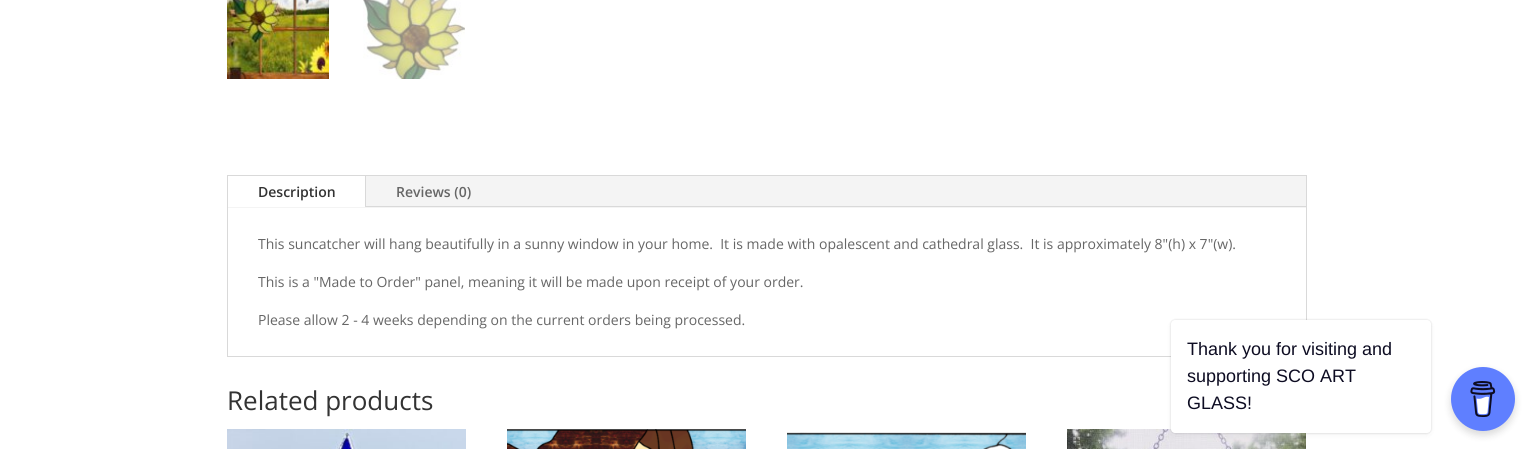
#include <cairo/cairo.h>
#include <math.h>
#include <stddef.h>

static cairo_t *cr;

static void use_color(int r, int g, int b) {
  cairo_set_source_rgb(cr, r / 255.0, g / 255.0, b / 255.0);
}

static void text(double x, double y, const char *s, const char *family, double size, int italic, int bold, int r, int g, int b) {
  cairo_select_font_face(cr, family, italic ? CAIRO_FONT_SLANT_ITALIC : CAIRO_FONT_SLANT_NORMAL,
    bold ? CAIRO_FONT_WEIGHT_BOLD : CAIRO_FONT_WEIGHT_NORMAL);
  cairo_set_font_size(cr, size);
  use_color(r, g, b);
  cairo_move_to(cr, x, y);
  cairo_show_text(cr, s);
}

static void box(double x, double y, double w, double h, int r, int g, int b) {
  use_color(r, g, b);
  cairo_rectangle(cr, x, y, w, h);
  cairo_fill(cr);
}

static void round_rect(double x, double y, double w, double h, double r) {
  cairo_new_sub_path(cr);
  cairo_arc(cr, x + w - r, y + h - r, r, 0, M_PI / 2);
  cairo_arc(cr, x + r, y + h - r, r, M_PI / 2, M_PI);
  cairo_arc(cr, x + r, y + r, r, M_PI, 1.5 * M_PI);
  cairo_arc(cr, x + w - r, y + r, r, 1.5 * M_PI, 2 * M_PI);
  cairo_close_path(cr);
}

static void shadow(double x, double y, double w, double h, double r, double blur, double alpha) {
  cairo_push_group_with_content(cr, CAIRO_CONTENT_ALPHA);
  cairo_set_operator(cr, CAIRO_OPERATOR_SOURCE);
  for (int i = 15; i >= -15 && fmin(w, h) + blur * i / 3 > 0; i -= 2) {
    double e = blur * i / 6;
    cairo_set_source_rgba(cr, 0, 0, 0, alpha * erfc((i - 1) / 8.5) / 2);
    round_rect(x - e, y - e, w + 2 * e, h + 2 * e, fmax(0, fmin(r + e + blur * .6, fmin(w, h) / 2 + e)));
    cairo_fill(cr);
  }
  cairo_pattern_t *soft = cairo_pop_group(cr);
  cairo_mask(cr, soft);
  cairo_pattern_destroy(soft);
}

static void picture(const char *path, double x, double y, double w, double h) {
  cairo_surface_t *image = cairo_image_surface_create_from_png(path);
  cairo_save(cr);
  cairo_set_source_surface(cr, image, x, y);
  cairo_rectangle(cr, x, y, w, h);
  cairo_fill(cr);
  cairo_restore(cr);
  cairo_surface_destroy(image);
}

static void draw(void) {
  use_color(255, 255, 255);
  cairo_paint(cr);
  picture("img_01.png", 227, 0, 102, 79);
  picture("img_02.png", 363, 0, 102, 79);
  cairo_rectangle(cr, 227.5, 175.5, 1079, 181);
  use_color(217, 217, 217);
  cairo_set_line_width(cr, 1);
  cairo_stroke(cr);
  box(228, 176, 1078, 32, 244, 244, 244);
  box(228, 176, 137, 31, 255, 255, 255);
  box(365, 176, 1, 31, 217, 217, 217);
  box(366, 206, 940, 1, 217, 217, 217);
  picture("img_03.png", 227, 429, 239, 20);
  picture("img_04.png", 507, 429, 239, 20);
  picture("img_05.png", 787, 432, 239, 17);
  picture("img_06.png", 1067, 429, 239, 20);
  use_color(0, 0, 0);
  shadow(1171, 320, 260, 113, 4, 1, 0.15);
  shadow(1171, 322, 260, 113, 4, 2.5, 0.05);
  use_color(255, 255, 255);
  round_rect(1171, 320, 260, 113, 4);
  cairo_fill(cr);
  use_color(0, 0, 0);
  shadow(1451, 371, 64, 64, 32, 4, 0.15);
  use_color(95, 127, 255);
  cairo_arc(cr, 1483, 399, 32, 0, 2 * M_PI);
  cairo_fill(cr);
  picture("img_07.png", 1470, 381, 26, 36);
  text(258, 197, "Description", "Open Sans SemiBold", 14, 0, 0, 51, 51, 51);
  text(396, 197, "Reviews (0)", "Open Sans SemiBold", 14, 0, 0, 102, 102, 102);
  text(258, 249, "This suncatcher will hang beautifully in a sunny window in your home.  It is made with opalescent and cathedral glass.  It is approximately 8\"(h) x 7\"(w).", "Open Sans", 14, 0, 0, 102, 102, 102);
  text(258, 287, "This is a \"Made to Order\" panel, meaning it will be made upon receipt of your order.", "Open Sans", 14, 0, 0, 102, 102, 102);
  text(258, 325, "Please allow 2 - 4 weeks depending on the current orders being processed.", "Open Sans", 14, 0, 0, 102, 102, 102);
  text(227, 410, "Related products", "Open Sans", 26, 0, 0, 51, 51, 51);
  text(1187, 355, "Thank you for visiting and", "Liberation Sans", 18, 0, 0, 13, 12, 34);
  text(1187, 382, "supporting SCO ART", "Liberation Sans", 18, 0, 0, 13, 12, 34);
  text(1187, 409, "GLASS!", "Liberation Sans", 18, 0, 0, 13, 12, 34);
}

int main(void) {
  cairo_surface_t *surface = cairo_image_surface_create(CAIRO_FORMAT_RGB24, 1533, 449);
  cr = cairo_create(surface);
  cairo_font_options_t *options = cairo_font_options_create();
  cairo_font_options_set_hint_metrics(options, CAIRO_HINT_METRICS_OFF);
  cairo_font_options_set_hint_style(options, CAIRO_HINT_STYLE_NONE);
  cairo_set_font_options(cr, options);
  cairo_set_miter_limit(cr, 4);
  draw();
  cairo_surface_write_to_png(surface, "out.png");
  cairo_font_options_destroy(options);
  cairo_destroy(cr);
  cairo_surface_destroy(surface);
  return 0;
}
